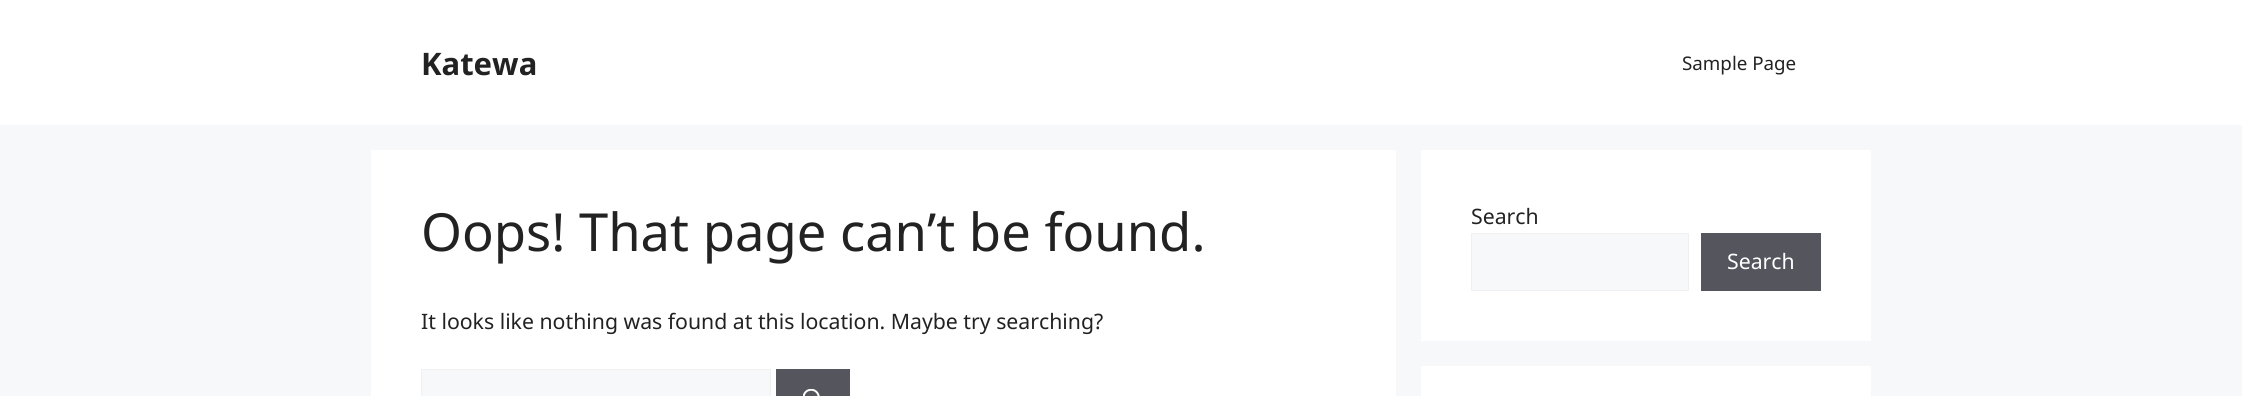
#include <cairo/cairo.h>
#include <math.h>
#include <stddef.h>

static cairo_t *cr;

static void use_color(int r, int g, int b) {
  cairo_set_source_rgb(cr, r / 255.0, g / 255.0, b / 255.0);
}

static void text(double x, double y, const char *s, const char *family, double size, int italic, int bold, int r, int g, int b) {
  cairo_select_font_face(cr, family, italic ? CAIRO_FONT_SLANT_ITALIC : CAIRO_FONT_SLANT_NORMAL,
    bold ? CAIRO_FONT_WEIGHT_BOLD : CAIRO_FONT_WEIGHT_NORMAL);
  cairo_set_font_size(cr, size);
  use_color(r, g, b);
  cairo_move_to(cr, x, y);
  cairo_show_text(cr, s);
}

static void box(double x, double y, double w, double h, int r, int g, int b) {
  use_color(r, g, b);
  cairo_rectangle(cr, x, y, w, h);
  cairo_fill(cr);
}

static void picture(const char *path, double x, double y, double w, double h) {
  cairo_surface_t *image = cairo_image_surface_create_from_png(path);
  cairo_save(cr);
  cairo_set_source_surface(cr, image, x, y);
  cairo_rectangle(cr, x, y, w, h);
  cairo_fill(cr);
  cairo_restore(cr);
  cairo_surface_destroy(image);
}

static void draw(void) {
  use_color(247, 248, 249);
  cairo_paint(cr);
  box(0, 0, 2242, 125, 255, 255, 255);
  box(371, 150, 1025, 246, 255, 255, 255);
  use_color(247, 248, 249);
  cairo_rectangle(cr, 421.5, 369.5, 349, 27);
  cairo_fill_preserve(cr);
  use_color(240, 240, 240);
  cairo_set_line_width(cr, 1);
  cairo_stroke(cr);
  box(776, 369, 74, 27, 85, 85, 94);
  picture("img_01.png", 803, 389, 17, 7);
  box(1421, 150, 450, 191, 255, 255, 255);
  use_color(247, 248, 249);
  cairo_rectangle(cr, 1471.5, 233.5, 217, 57);
  cairo_fill_preserve(cr);
  use_color(240, 240, 240);
  cairo_stroke(cr);
  box(1701, 233, 120, 58, 85, 85, 94);
  box(1421, 366, 450, 30, 255, 255, 255);
  text(421, 75, "Katewa", "Noto Sans", 31, 0, 1, 34, 34, 34);
  text(1682, 70, "Sample Page", "Noto Sans", 18.75, 0, 0, 34, 34, 34);
  text(421, 251, "Oops! That page can’t be found.", "Noto Sans", 52.5, 0, 0, 34, 34, 34);
  text(421, 329, "It looks like nothing was found at this location. Maybe try searching?", "Noto Sans", 21.25, 0, 0, 34, 34, 34);
  text(1471, 224, "Search", "Noto Sans", 21.25, 0, 0, 34, 34, 34);
  text(1727, 269, "Search", "Noto Sans", 21.25, 0, 0, 255, 255, 255);
}

int main(void) {
  cairo_surface_t *surface = cairo_image_surface_create(CAIRO_FORMAT_RGB24, 2242, 396);
  cr = cairo_create(surface);
  cairo_font_options_t *options = cairo_font_options_create();
  cairo_font_options_set_hint_metrics(options, CAIRO_HINT_METRICS_OFF);
  cairo_font_options_set_hint_style(options, CAIRO_HINT_STYLE_NONE);
  cairo_set_font_options(cr, options);
  cairo_set_miter_limit(cr, 4);
  draw();
  cairo_surface_write_to_png(surface, "out.png");
  cairo_font_options_destroy(options);
  cairo_destroy(cr);
  cairo_surface_destroy(surface);
  return 0;
}
